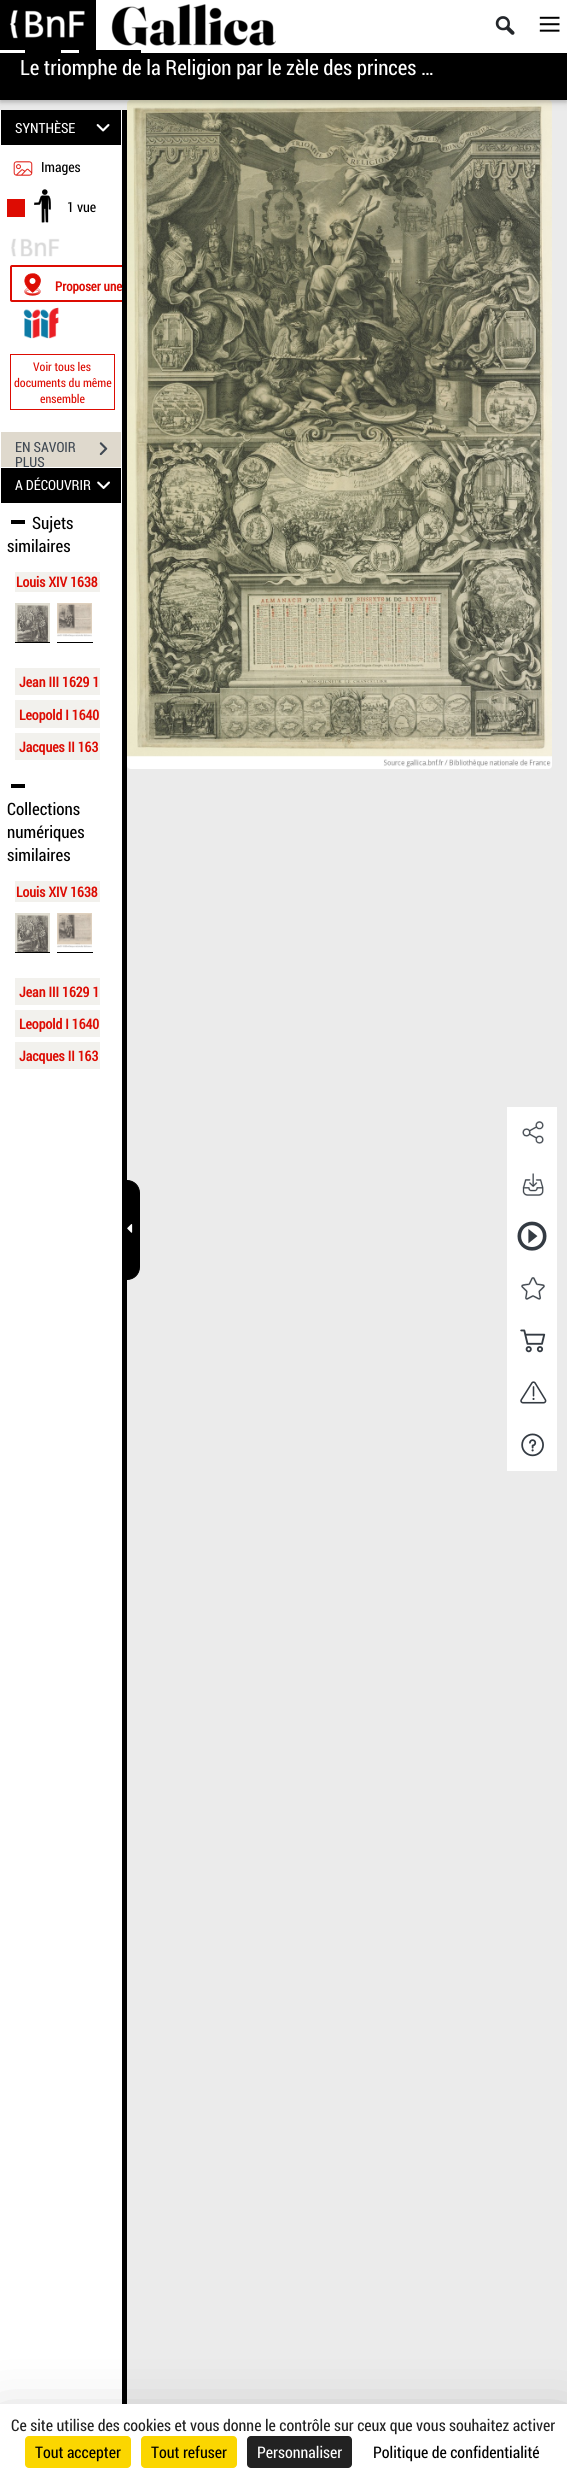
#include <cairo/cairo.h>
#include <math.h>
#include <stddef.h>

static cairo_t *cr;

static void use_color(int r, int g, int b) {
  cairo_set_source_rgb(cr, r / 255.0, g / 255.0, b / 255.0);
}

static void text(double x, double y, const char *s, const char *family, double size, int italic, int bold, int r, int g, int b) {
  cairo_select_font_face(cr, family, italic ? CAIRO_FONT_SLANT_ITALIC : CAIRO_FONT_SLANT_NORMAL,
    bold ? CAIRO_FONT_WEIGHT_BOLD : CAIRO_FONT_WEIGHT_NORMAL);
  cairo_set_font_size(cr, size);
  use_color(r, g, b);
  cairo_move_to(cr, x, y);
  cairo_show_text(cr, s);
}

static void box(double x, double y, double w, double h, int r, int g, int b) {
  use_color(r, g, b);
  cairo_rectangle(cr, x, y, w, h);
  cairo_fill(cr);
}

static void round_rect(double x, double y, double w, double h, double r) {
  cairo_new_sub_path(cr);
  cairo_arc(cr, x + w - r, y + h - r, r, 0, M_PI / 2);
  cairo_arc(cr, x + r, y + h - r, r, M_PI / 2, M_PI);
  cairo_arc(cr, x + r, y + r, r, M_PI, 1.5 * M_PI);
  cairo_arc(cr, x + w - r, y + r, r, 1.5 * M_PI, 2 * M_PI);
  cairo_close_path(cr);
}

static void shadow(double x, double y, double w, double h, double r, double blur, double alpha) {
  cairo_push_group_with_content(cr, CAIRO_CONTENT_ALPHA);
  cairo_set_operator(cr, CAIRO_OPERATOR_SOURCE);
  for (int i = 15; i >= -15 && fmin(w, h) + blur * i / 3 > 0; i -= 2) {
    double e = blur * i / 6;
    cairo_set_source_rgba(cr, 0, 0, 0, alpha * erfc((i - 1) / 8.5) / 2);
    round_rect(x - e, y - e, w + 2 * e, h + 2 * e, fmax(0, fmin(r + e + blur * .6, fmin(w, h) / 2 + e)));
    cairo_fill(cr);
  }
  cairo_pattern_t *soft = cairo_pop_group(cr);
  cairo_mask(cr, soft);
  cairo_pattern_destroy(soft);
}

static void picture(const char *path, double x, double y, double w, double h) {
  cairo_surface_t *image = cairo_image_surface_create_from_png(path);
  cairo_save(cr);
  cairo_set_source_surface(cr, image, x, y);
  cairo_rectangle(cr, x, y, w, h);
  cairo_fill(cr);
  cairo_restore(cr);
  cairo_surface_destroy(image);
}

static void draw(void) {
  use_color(235, 235, 235);
  cairo_paint(cr);
  picture("img_17.png", 127, 100, 425, 669);
  use_color(0, 0, 0);
  shadow(0, 52, 567, 50, 0, 5, 0.12);
  shadow(0, 52, 567, 50, 0, 2, 0.16);
  box(96, 0, 471, 50, 255, 255, 255);
  picture("img_01.png", 0, 0, 96, 50);
  picture("img_02.png", 111, 4, 165, 42);
  picture("img_03.png", 495, 16, 20, 19);
  picture("img_04.png", 539, 16, 21, 16);
  box(0, 53, 567, 47, 0, 0, 0);
  box(0, 50, 567, 3, 255, 255, 255);
  box(25, 50, 36, 3, 0, 0, 0);
  box(79, 50, 62, 3, 0, 0, 0);
  box(122, 110, 5, 2294, 0, 0, 0);
  box(0, 110, 122, 2294, 255, 255, 255);
  box(1, 110, 120, 35, 0, 0, 0);
  picture("img_05.png", 96, 124, 14, 8);
  picture("img_06.png", 13, 161, 20, 15);
  box(7, 199, 18, 18, 221, 12, 3);
  picture("img_07.png", 34, 189, 17, 34);
  picture("img_08.png", 11, 238, 49, 19);
  cairo_save(cr);
  cairo_rectangle(cr, 0, 146, 122, 286);
  cairo_clip(cr);
  round_rect(11, 266, 188, 35, 1);
  cairo_stroke(cr);
  cairo_restore(cr);
  picture("img_09.png", 24, 273, 17, 23);
  picture("img_10.png", 23, 307, 36, 32);
  cairo_rectangle(cr, 10.5, 354.5, 104, 55);
  cairo_set_line_width(cr, 1);
  cairo_stroke(cr);
  box(1, 432, 120, 35, 223, 217, 205);
  picture("img_11.png", 99, 442, 9, 14);
  box(1, 468, 120, 35, 0, 0, 0);
  picture("img_12.png", 97, 481, 13, 8);
  box(11, 520, 14, 4, 0, 0, 0);
  box(15, 572, 85, 20, 242, 241, 237);
  picture("img_13.png", 15, 603, 35, 39);
  box(15, 642, 35, 1, 0, 0, 0);
  picture("img_14.png", 57, 603, 35, 34);
  box(57, 642, 36, 1, 0, 0, 0);
  box(15, 668, 85, 27, 242, 241, 237);
  box(15, 700, 85, 28, 242, 241, 237);
  box(15, 733, 85, 27, 242, 241, 237);
  box(11, 784, 14, 4, 0, 0, 0);
  box(15, 881, 85, 21, 242, 241, 237);
  picture("img_13.png", 15, 913, 35, 39);
  box(15, 952, 35, 1, 0, 0, 0);
  picture("img_15.png", 57, 913, 35, 35);
  box(57, 952, 36, 1, 0, 0, 0);
  box(15, 978, 85, 27, 242, 241, 237);
  box(15, 1010, 85, 27, 242, 241, 237);
  box(15, 1042, 85, 27, 242, 241, 237);
  use_color(0, 0, 0);
  cairo_new_path(cr);
  cairo_move_to(cr, 127.5, 1180.5);
  cairo_line_to(cr, 127, 1180.5);
  cairo_curve_to(cr, 134, 1180.5, 139.5, 1186, 139.5, 1193);
  cairo_line_to(cr, 139.5, 1267);
  cairo_curve_to(cr, 139.5, 1274, 134, 1279.5, 127, 1279.5);
  cairo_line_to(cr, 127.5, 1279.5);
  cairo_close_path(cr);
  cairo_fill_preserve(cr);
  cairo_stroke(cr);
  picture("img_16.png", 127, 1224, 6, 9);
  box(507, 1107, 50, 364, 255, 255, 255);
  picture("img_18.png", 522, 1121, 22, 23);
  picture("img_19.png", 522, 1173, 22, 23);
  picture("img_20.png", 517, 1221, 30, 30);
  picture("img_21.png", 521, 1277, 24, 23);
  picture("img_22.png", 520, 1329, 26, 24);
  picture("img_23.png", 520, 1381, 27, 23);
  picture("img_24.png", 521, 1433, 23, 24);
  use_color(0, 0, 0);
  shadow(0, 2424, 567, 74, 0, 30, 0.25);
  box(0, 2404, 567, 74, 255, 255, 255);
  use_color(251, 214, 0);
  round_rect(25, 2436, 106, 32, 4);
  cairo_fill(cr);
  round_rect(141, 2436, 96, 32, 4);
  cairo_fill(cr);
  use_color(34, 34, 34);
  round_rect(247, 2436, 105, 32, 4);
  cairo_fill(cr);
  text(20, 75, "Le triomphe de la Religion par le zèle des princes …", "Roboto Condensed", 21, 0, 0, 255, 255, 255);
  text(15, 133, "SYNTHÈSE", "Roboto Condensed", 14, 0, 0, 255, 255, 255);
  text(41, 172, "Images", "Roboto Condensed", 14, 0, 0, 0, 0, 0);
  text(67, 212, "1 vue", "Roboto Condensed", 14, 0, 0, 0, 0, 0);
  text(55, 291, "Proposer une", "Roboto Condensed", 13, 0, 1, 221, 12, 3);
  text(33, 371, "Voir tous les", "Roboto Condensed", 12, 0, 0, 221, 12, 3);
  text(14, 387, "documents du même", "Roboto Condensed", 12, 0, 0, 221, 12, 3);
  text(40, 403, "ensemble", "Roboto Condensed", 12, 0, 0, 221, 12, 3);
  text(15, 452, "EN SAVOIR", "Roboto Condensed", 14, 0, 0, 64, 73, 83);
  text(15, 467, "PLUS", "Roboto Condensed", 14, 0, 0, 64, 73, 83);
  text(15, 490, "A DÉCOUVRIR", "Roboto Condensed", 14, 0, 0, 255, 255, 255);
  text(32, 529, "Sujets", "Roboto Condensed", 17, 0, 0, 0, 0, 0);
  text(7, 552, "similaires", "Roboto Condensed", 17, 0, 0, 0, 0, 0);
  text(16, 587, "Louis XIV 1638", "Roboto Condensed", 14, 0, 1, 221, 12, 3);
  text(19, 687, "Jean III 1629 1", "Roboto Condensed", 14, 0, 1, 221, 12, 3);
  text(19, 720, "Leopold I 1640", "Roboto Condensed", 14, 0, 1, 221, 12, 3);
  text(19, 752, "Jacques II 163", "Roboto Condensed", 14, 0, 1, 221, 12, 3);
  text(7, 815, "Collections", "Roboto Condensed", 17, 0, 0, 0, 0, 0);
  text(7, 838, "numériques", "Roboto Condensed", 17, 0, 0, 0, 0, 0);
  text(7, 861, "similaires", "Roboto Condensed", 17, 0, 0, 0, 0, 0);
  text(16, 897, "Louis XIV 1638", "Roboto Condensed", 14, 0, 1, 221, 12, 3);
  text(19, 997, "Jean III 1629 1", "Roboto Condensed", 14, 0, 1, 221, 12, 3);
  text(19, 1029, "Leopold I 1640", "Roboto Condensed", 14, 0, 1, 221, 12, 3);
  text(19, 1061, "Jacques II 163", "Roboto Condensed", 14, 0, 1, 221, 12, 3);
  text(11, 2431, "Ce site utilise des cookies et vous donne le contrôle sur ceux que vous souhaitez activer", "Roboto Condensed", 16, 0, 0, 34, 34, 34);
  text(35, 2458, "Tout accepter", "Roboto Condensed", 16, 0, 0, 0, 0, 0);
  text(151, 2458, "Tout refuser", "Roboto Condensed", 16, 0, 0, 0, 0, 0);
  text(257, 2458, "Personnaliser", "Roboto Condensed", 16, 0, 0, 255, 255, 255);
  text(373, 2458, "Politique de confidentialité", "Roboto Condensed", 16, 0, 0, 0, 0, 0);
}

int main(void) {
  cairo_surface_t *surface = cairo_image_surface_create(CAIRO_FORMAT_RGB24, 567, 2478);
  cr = cairo_create(surface);
  cairo_font_options_t *options = cairo_font_options_create();
  cairo_font_options_set_hint_metrics(options, CAIRO_HINT_METRICS_OFF);
  cairo_font_options_set_hint_style(options, CAIRO_HINT_STYLE_NONE);
  cairo_set_font_options(cr, options);
  cairo_set_miter_limit(cr, 4);
  draw();
  cairo_surface_write_to_png(surface, "out.png");
  cairo_font_options_destroy(options);
  cairo_destroy(cr);
  cairo_surface_destroy(surface);
  return 0;
}
